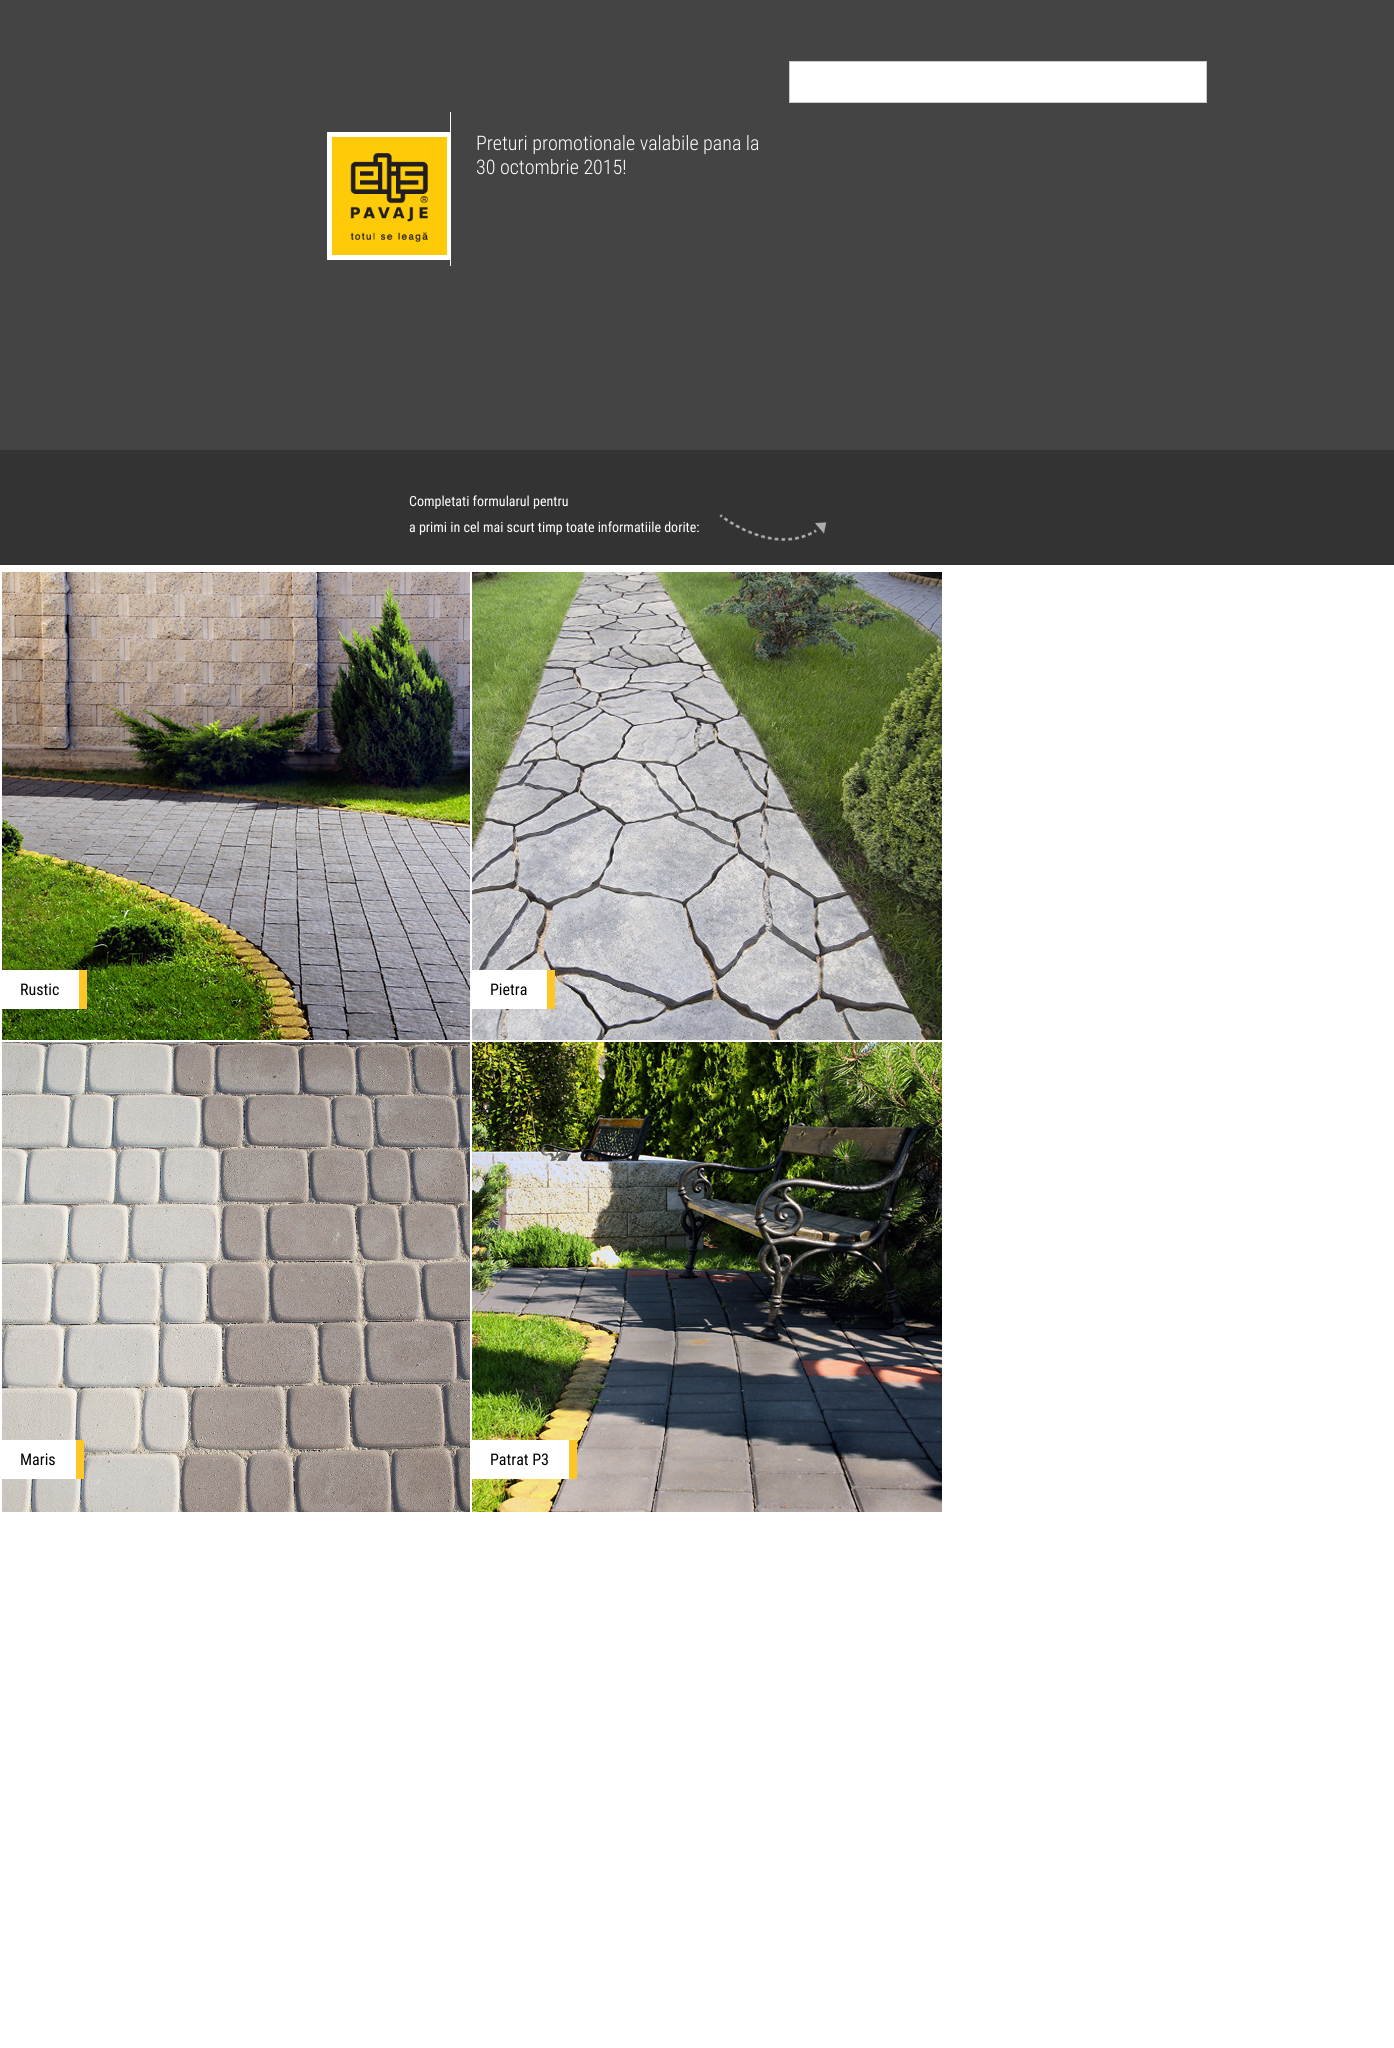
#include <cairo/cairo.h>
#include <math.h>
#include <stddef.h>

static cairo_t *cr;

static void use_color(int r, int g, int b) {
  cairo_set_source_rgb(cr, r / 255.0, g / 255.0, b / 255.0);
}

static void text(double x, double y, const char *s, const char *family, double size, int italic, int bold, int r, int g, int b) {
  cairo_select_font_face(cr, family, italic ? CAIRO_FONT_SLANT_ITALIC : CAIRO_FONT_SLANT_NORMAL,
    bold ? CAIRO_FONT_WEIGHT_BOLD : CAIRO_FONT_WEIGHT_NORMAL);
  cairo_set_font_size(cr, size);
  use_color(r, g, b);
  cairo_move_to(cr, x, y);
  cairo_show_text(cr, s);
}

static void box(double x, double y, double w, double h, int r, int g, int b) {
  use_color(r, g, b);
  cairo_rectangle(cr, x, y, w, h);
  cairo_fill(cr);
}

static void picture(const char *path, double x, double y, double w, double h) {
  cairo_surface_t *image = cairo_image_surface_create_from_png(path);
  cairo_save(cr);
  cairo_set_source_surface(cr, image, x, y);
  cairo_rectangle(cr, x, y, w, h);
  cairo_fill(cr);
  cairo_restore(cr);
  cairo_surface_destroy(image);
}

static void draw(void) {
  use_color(255, 255, 255);
  cairo_paint(cr);
  box(0, 0, 1394, 450, 68, 68, 68);
  use_color(255, 255, 255);
  cairo_rectangle(cr, 789.5, 61.5, 417, 41);
  cairo_fill_preserve(cr);
  use_color(204, 204, 204);
  cairo_set_line_width(cr, 1);
  cairo_stroke(cr);
  box(450, 112, 1, 154, 255, 255, 255);
  box(327, 132, 123, 128, 255, 255, 255);
  picture("img_01.png", 332, 137, 115, 118);
  box(0, 450, 1394, 115, 51, 51, 51);
  picture("img_02.png", 719, 514, 108, 28);
  picture("img_03.png", 2, 572, 468, 468);
  box(2, 970, 77, 39, 255, 255, 255);
  box(79, 970, 8, 39, 255, 198, 39);
  picture("img_04.png", 472, 572, 470, 468);
  box(472, 970, 75, 39, 255, 255, 255);
  box(547, 970, 8, 39, 255, 198, 39);
  picture("img_05.png", 2, 1042, 468, 470);
  box(2, 1440, 74, 39, 255, 255, 255);
  box(76, 1440, 8, 39, 255, 198, 39);
  picture("img_06.png", 472, 1042, 470, 470);
  box(472, 1440, 97, 39, 255, 255, 255);
  box(569, 1440, 8, 39, 255, 198, 39);
  text(476, 150, "Preturi promotionale valabile pana la", "Roboto Condensed Light", 20, 0, 0, 255, 255, 255);
  text(476, 174, "30 octombrie 2015!", "Roboto Condensed Light", 20, 0, 0, 255, 255, 255);
  text(409, 506, "Completati formularul pentru", "Roboto Condensed", 14, 0, 0, 255, 255, 255);
  text(409, 532, "a primi in cel mai scurt timp toate informatiile dorite:", "Roboto Condensed", 14, 0, 0, 255, 255, 255);
  text(20, 995, "Rustic", "Roboto Condensed", 16, 0, 0, 0, 0, 0);
  text(490, 995, "Pietra", "Roboto Condensed", 16, 0, 0, 0, 0, 0);
  text(20, 1465, "Maris", "Roboto Condensed", 16, 0, 0, 0, 0, 0);
  text(490, 1465, "Patrat P3", "Roboto Condensed", 16, 0, 0, 0, 0, 0);
}

int main(void) {
  cairo_surface_t *surface = cairo_image_surface_create(CAIRO_FORMAT_RGB24, 1394, 2048);
  cr = cairo_create(surface);
  cairo_font_options_t *options = cairo_font_options_create();
  cairo_font_options_set_hint_metrics(options, CAIRO_HINT_METRICS_OFF);
  cairo_font_options_set_hint_style(options, CAIRO_HINT_STYLE_NONE);
  cairo_set_font_options(cr, options);
  cairo_set_miter_limit(cr, 4);
  draw();
  cairo_surface_write_to_png(surface, "out.png");
  cairo_font_options_destroy(options);
  cairo_destroy(cr);
  cairo_surface_destroy(surface);
  return 0;
}
